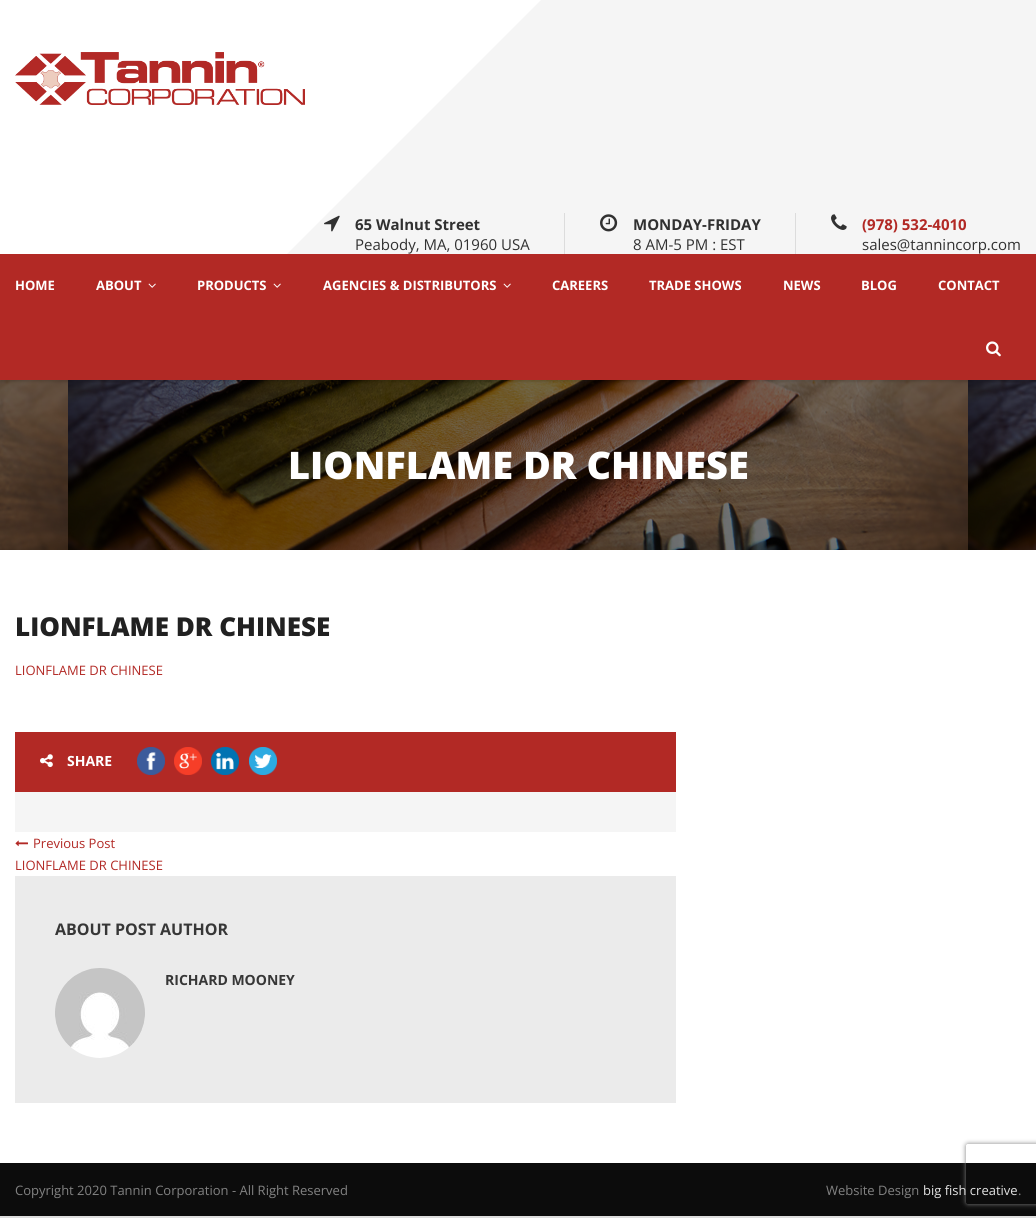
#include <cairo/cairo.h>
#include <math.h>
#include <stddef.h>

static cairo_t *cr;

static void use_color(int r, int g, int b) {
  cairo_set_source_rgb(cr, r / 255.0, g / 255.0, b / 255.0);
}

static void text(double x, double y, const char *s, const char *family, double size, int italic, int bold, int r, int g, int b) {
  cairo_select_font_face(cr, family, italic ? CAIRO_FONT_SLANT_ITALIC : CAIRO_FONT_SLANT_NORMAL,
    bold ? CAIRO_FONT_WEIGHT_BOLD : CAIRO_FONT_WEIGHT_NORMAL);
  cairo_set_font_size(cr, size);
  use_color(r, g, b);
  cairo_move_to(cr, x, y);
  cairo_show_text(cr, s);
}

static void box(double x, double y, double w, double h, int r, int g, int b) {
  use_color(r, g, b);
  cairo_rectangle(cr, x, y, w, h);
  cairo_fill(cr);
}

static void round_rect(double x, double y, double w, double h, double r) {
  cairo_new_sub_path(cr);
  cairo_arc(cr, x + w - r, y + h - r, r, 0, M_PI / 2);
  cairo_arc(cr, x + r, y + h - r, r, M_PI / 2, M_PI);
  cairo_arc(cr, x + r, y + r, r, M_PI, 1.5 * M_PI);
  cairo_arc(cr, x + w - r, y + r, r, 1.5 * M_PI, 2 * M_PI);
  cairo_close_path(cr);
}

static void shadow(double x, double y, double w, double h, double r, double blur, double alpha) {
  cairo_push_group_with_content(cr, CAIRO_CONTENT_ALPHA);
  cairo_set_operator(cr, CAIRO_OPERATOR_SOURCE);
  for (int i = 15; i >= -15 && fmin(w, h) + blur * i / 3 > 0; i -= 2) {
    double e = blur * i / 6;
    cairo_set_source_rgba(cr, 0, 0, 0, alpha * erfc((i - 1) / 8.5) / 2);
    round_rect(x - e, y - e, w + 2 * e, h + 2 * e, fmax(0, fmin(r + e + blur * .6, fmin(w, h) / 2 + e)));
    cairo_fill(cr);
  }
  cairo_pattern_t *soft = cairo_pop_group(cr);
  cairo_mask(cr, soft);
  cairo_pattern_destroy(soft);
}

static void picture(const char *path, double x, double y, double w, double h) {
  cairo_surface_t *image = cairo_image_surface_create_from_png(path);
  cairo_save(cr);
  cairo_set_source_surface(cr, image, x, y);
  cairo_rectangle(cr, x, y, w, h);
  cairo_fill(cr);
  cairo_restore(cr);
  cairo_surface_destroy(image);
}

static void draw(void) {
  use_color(221, 221, 221);
  cairo_paint(cr);
  box(0, 0, 1036, 1163, 255, 255, 255);
  picture("img_07.png", 0, 380, 1036, 170);
  use_color(0, 0, 0);
  shadow(0, 256, 1036, 126, 0, 1, 0.12);
  use_color(245, 245, 245);
  cairo_new_path(cr);
  cairo_move_to(cr, 541, 0);
  cairo_line_to(cr, 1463, 0);
  cairo_line_to(cr, 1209, 254);
  cairo_line_to(cr, 287, 254);
  cairo_close_path(cr);
  cairo_fill(cr);
  picture("img_01.png", 15, 52, 290, 53);
  picture("img_02.png", 324, 215, 16, 17);
  box(564, 213, 1, 41, 220, 220, 220);
  picture("img_03.png", 600, 214, 18, 18);
  box(795, 213, 1, 41, 220, 220, 220);
  picture("img_04.png", 831, 214, 16, 16);
  box(0, 254, 1036, 126, 178, 41, 37);
  picture("img_05.png", 148, 283, 8, 5);
  picture("img_05.png", 273, 283, 8, 5);
  picture("img_05.png", 503, 283, 8, 5);
  picture("img_06.png", 986, 341, 15, 16);
  box(15, 732, 661, 60, 178, 41, 37);
  picture("img_08.png", 40, 754, 13, 14);
  picture("img_09.png", 137, 747, 28, 28);
  picture("img_10.png", 174, 747, 28, 28);
  picture("img_11.png", 211, 747, 28, 28);
  picture("img_12.png", 249, 747, 28, 28);
  box(15, 792, 661, 40, 245, 245, 245);
  picture("img_13.png", 15, 840, 13, 7);
  box(15, 876, 661, 227, 235, 235, 235);
  picture("img_14.png", 55, 968, 90, 90);
  box(0, 1163, 1036, 53, 12, 12, 12);
  cairo_save(cr);
  cairo_set_fill_rule(cr, CAIRO_FILL_RULE_EVEN_ODD);
  cairo_new_path(cr);
  cairo_move_to(cr, 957, 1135);
  cairo_line_to(cr, 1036, 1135);
  cairo_line_to(cr, 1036, 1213);
  cairo_line_to(cr, 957, 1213);
  cairo_close_path(cr);
  cairo_move_to(cr, 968, 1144);
  cairo_line_to(cr, 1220, 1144);
  cairo_curve_to(cr, 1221, 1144, 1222, 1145, 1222, 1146);
  cairo_line_to(cr, 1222, 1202);
  cairo_curve_to(cr, 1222, 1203, 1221, 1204, 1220, 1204);
  cairo_line_to(cr, 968, 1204);
  cairo_curve_to(cr, 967, 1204, 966, 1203, 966, 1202);
  cairo_line_to(cr, 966, 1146);
  cairo_curve_to(cr, 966, 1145, 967, 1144, 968, 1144);
  cairo_close_path(cr);
  cairo_clip(cr);
  use_color(128, 128, 128);
  shadow(966, 1144, 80, 60, 2, 2.5, 1);
  cairo_restore(cr);
  text(355, 230, "65 Walnut Street", "Open Sans", 15, 0, 1, 49, 49, 49);
  text(355, 250, "Peabody, MA, 01960 USA", "Open Sans", 15, 0, 0, 49, 49, 49);
  text(633, 230, "MONDAY-FRIDAY", "Open Sans", 15, 0, 1, 49, 49, 49);
  text(633, 250, "8 AM-5 PM : EST", "Open Sans", 15, 0, 0, 49, 49, 49);
  text(862, 230, "(978) 532-4010", "Open Sans", 15, 0, 1, 178, 41, 37);
  text(862, 250, "sales@tannincorp.com", "Open Sans", 15, 0, 0, 49, 49, 49);
  text(15, 290, "HOME", "Open Sans", 13, 0, 1, 255, 255, 255);
  text(96, 290, "ABOUT", "Open Sans", 13, 0, 1, 255, 255, 255);
  text(197, 290, "PRODUCTS", "Open Sans", 13, 0, 1, 255, 255, 255);
  text(323, 290, "AGENCIES & DISTRIBUTORS", "Open Sans", 13, 0, 1, 255, 255, 255);
  text(552, 290, "CAREERS", "Open Sans", 13, 0, 1, 255, 255, 255);
  text(649, 290, "TRADE SHOWS", "Open Sans", 13, 0, 1, 255, 255, 255);
  text(783, 290, "NEWS", "Open Sans", 13, 0, 1, 255, 255, 255);
  text(861, 290, "BLOG", "Open Sans", 13, 0, 1, 255, 255, 255);
  text(938, 290, "CONTACT", "Open Sans", 13, 0, 1, 255, 255, 255);
  text(288, 479, "LIONFLAME DR CHINESE", "Open Sans ExtraBold", 38, 0, 0, 255, 255, 255);
  text(15, 636, "LIONFLAME DR CHINESE", "Open Sans ExtraBold", 26, 0, 0, 33, 33, 33);
  text(15, 675, "LIONFLAME DR CHINESE", "Open Sans", 13, 0, 0, 178, 41, 37);
  text(67, 766, "SHARE", "Open Sans", 14, 0, 1, 255, 255, 255);
  text(33, 848, "Previous Post", "Open Sans", 13, 0, 0, 178, 41, 37);
  text(15, 870, "LIONFLAME DR CHINESE", "Open Sans", 13, 0, 0, 178, 41, 37);
  text(55, 935, "ABOUT POST AUTHOR", "Open Sans", 16, 0, 1, 55, 55, 55);
  text(165, 985, "RICHARD MOONEY", "Open Sans", 14, 0, 1, 55, 55, 55);
  text(15, 1195, "Copyright 2020 Tannin Corporation - All Right Reserved", "Open Sans", 13, 0, 0, 130, 130, 130);
  text(826, 1195, "Website Design", "Open Sans", 13, 0, 0, 130, 130, 130);
  text(923, 1195, "big fish creative", "Open Sans", 13, 0, 0, 226, 226, 226);
  text(1018, 1195, ".", "Open Sans", 13, 0, 0, 130, 130, 130);
}

int main(void) {
  cairo_surface_t *surface = cairo_image_surface_create(CAIRO_FORMAT_RGB24, 1036, 1218);
  cr = cairo_create(surface);
  cairo_font_options_t *options = cairo_font_options_create();
  cairo_font_options_set_hint_metrics(options, CAIRO_HINT_METRICS_OFF);
  cairo_font_options_set_hint_style(options, CAIRO_HINT_STYLE_NONE);
  cairo_set_font_options(cr, options);
  cairo_set_miter_limit(cr, 4);
  draw();
  cairo_surface_write_to_png(surface, "out.png");
  cairo_font_options_destroy(options);
  cairo_destroy(cr);
  cairo_surface_destroy(surface);
  return 0;
}
